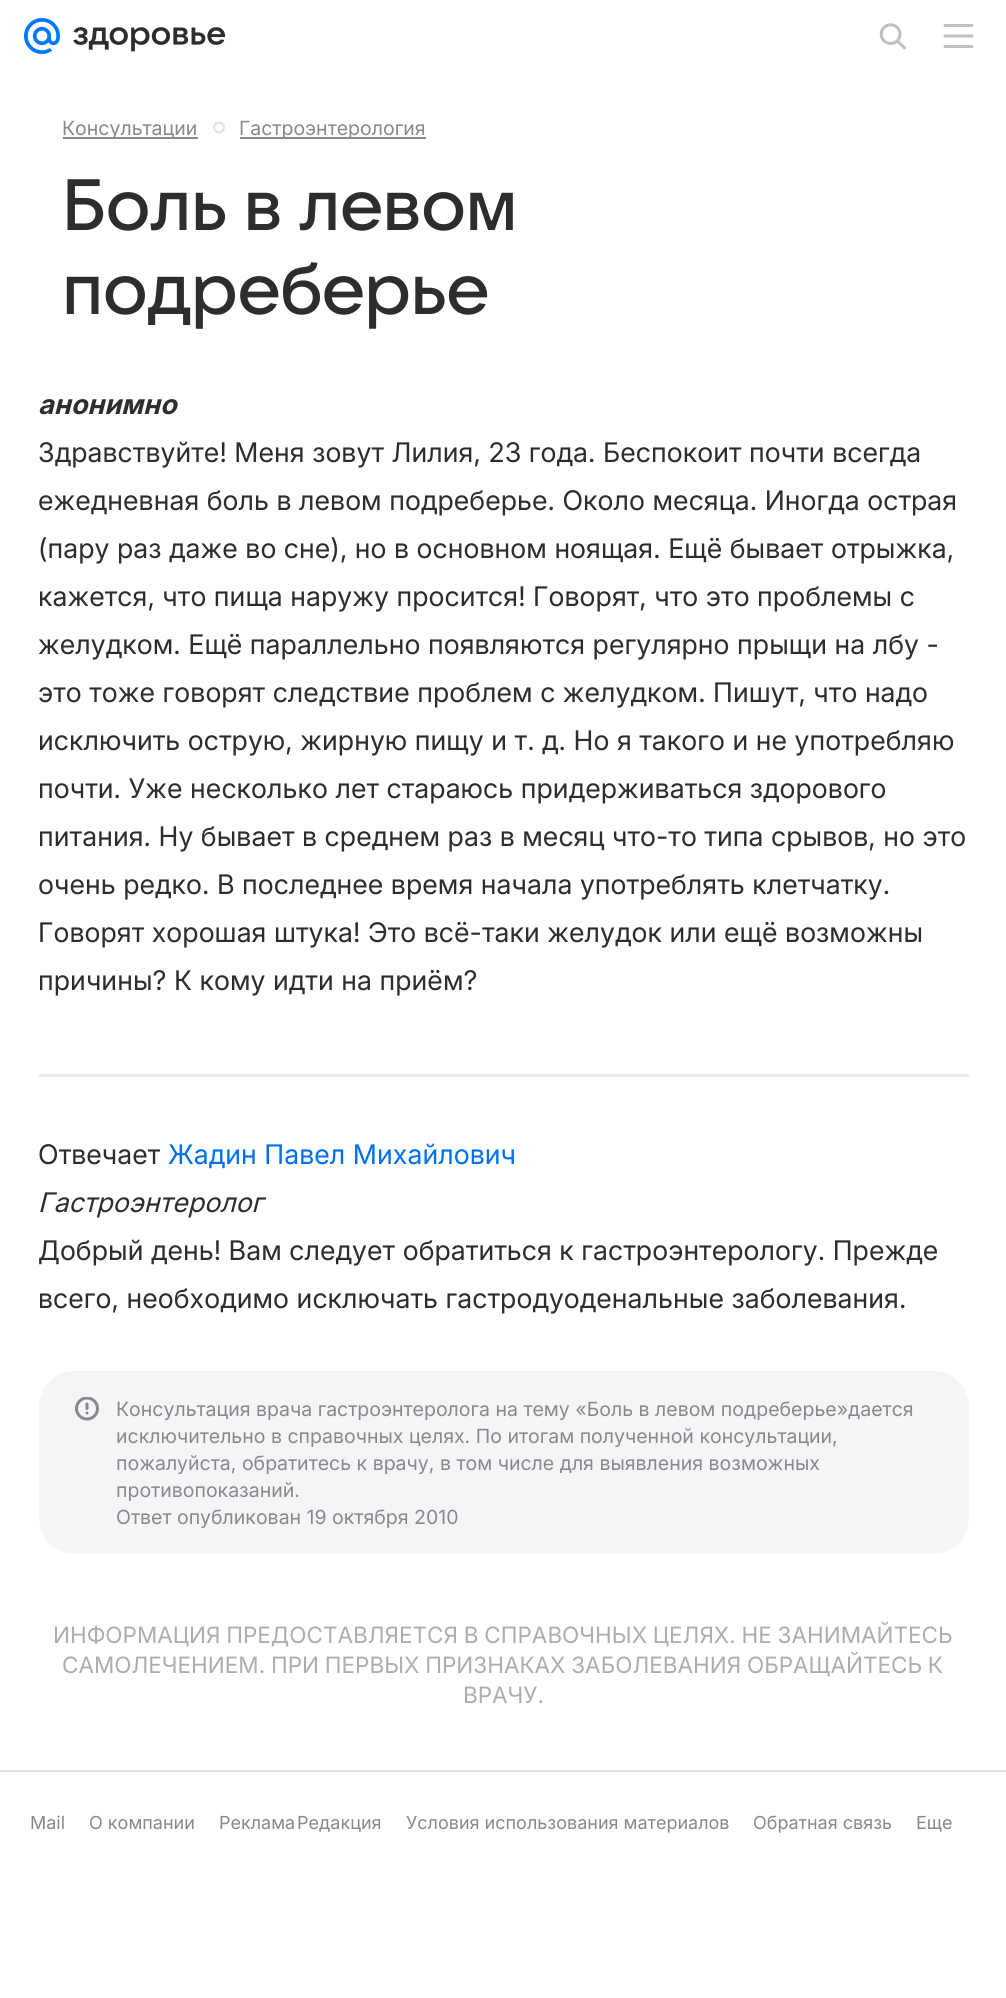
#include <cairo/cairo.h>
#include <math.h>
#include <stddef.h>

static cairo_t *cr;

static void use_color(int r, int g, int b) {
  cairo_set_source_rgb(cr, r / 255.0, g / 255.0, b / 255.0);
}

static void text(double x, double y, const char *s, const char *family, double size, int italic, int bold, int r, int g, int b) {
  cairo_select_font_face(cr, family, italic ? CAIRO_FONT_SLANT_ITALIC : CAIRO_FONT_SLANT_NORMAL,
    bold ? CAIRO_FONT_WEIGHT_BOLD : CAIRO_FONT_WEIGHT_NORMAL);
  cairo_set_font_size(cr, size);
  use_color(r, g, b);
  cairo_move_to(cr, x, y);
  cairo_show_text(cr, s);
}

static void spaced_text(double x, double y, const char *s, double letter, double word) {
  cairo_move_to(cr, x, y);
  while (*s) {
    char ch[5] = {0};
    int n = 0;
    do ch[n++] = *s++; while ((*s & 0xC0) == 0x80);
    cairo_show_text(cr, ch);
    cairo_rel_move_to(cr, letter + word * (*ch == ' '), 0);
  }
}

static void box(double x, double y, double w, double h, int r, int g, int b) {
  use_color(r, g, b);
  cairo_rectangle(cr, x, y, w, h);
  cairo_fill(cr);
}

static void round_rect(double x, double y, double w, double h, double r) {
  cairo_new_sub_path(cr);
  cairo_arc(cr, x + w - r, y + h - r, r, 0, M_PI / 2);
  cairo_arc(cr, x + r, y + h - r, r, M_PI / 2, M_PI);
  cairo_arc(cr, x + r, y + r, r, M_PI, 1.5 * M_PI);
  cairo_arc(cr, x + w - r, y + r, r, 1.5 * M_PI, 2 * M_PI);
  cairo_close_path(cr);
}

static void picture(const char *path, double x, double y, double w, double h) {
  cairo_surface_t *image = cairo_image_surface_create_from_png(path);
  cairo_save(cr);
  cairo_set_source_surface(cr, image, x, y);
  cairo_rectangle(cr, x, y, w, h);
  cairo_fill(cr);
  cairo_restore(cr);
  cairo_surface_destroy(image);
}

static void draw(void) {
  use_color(255, 255, 255);
  cairo_paint(cr);
  picture("img_01.png", 24, 18, 36, 36);
  picture("img_02.png", 73, 27, 153, 25);
  picture("img_03.png", 879, 23, 27, 27);
  picture("img_04.png", 943, 24, 31, 24);
  box(63, 137, 135, 2, 135, 137, 143);
  picture("img_05.png", 213, 121, 12, 13);
  box(240, 137, 186, 2, 135, 137, 143);
  box(39, 1074, 930, 3, 235, 236, 239);
  use_color(245, 245, 247);
  round_rect(39, 1371, 930, 183, 36);
  cairo_fill(cr);
  picture("img_06.png", 75, 1397, 24, 24);
  box(0, 1770, 1006, 2, 224, 226, 232);
  text(62, 135, "Консультации", "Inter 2", 19.5, 0, 0, 135, 137, 143);
  text(239, 135, "Гастроэнтерология", "Inter 2", 19.5, 0, 0, 135, 137, 143);
  cairo_select_font_face(cr, "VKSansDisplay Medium", CAIRO_FONT_SLANT_NORMAL, CAIRO_FONT_WEIGHT_NORMAL);
  cairo_set_font_size(cr, 72);
  use_color(44, 45, 46);
  spaced_text(62, 230, "Боль в левом", -0.4, 0);
  spaced_text(62, 314, "подреберье", -0.4, 0);
  cairo_select_font_face(cr, "Inter", CAIRO_FONT_SLANT_ITALIC, CAIRO_FONT_WEIGHT_BOLD);
  cairo_set_font_size(cr, 27);
  spaced_text(38, 414, "анонимно", 0.08, 0);
  cairo_select_font_face(cr, "Inter", CAIRO_FONT_SLANT_NORMAL, CAIRO_FONT_WEIGHT_NORMAL);
  spaced_text(38, 462, "Здравствуйте! Меня зовут Лилия, 23 года. Беспокоит почти всегда", 0.08, 0);
  spaced_text(38, 510, "ежедневная боль в левом подреберье. Около месяца. Иногда острая", 0.08, 0);
  spaced_text(38, 558, "(пару раз даже во сне), но в основном ноящая. Ещё бывает отрыжка,", 0.08, 0);
  spaced_text(38, 606, "кажется, что пища наружу просится! Говорят, что это проблемы с", 0.08, 0);
  spaced_text(38, 654, "желудком. Ещё параллельно появляются регулярно прыщи на лбу -", 0.08, 0);
  spaced_text(38, 702, "это тоже говорят следствие проблем с желудком. Пишут, что надо", 0.08, 0);
  spaced_text(38, 750, "исключить острую, жирную пищу и т. д. Но я такого и не употребляю", 0.08, 0);
  spaced_text(38, 798, "почти. Уже несколько лет стараюсь придерживаться здорового", 0.08, 0);
  spaced_text(38, 846, "питания. Ну бывает в среднем раз в месяц что-то типа срывов, но это", 0.08, 0);
  spaced_text(38, 894, "очень редко. В последнее время начала употреблять клетчатку.", 0.08, 0);
  spaced_text(38, 942, "Говорят хорошая штука! Это всё-таки желудок или ещё возможны", 0.08, 0);
  spaced_text(38, 990, "причины? К кому идти на приём?", 0.08, 0);
  spaced_text(38, 1164, "Отвечает", 0.08, 0);
  use_color(0, 112, 240);
  spaced_text(168, 1164, "Жадин Павел Михайлович", 0.08, 0);
  cairo_select_font_face(cr, "Inter", CAIRO_FONT_SLANT_ITALIC, CAIRO_FONT_WEIGHT_NORMAL);
  use_color(44, 45, 46);
  spaced_text(38, 1212, "Гастроэнтеролог", 0.08, 0);
  cairo_select_font_face(cr, "Inter", CAIRO_FONT_SLANT_NORMAL, CAIRO_FONT_WEIGHT_NORMAL);
  spaced_text(38, 1260, "Добрый день! Вам следует обратиться к гастроэнтерологу. Прежде", 0.08, 0);
  spaced_text(38, 1308, "всего, необходимо исключать гастродуоденальные заболевания.", 0.08, 0);
  text(116, 1416, "Консультация врача гастроэнтеролога на тему «Боль в левом подреберье»дается", "Inter 2", 19.5, 0, 0, 135, 137, 143);
  text(116, 1443, "исключительно в справочных целях. По итогам полученной консультации,", "Inter 2", 19.5, 0, 0, 135, 137, 143);
  text(116, 1470, "пожалуйста, обратитесь к врачу, в том числе для выявления возможных", "Inter 2", 19.5, 0, 0, 135, 137, 143);
  text(116, 1497, "противопоказаний.", "Inter 2", 19.5, 0, 0, 135, 137, 143);
  text(116, 1524, "Ответ опубликован 19 октября 2010", "Inter 2", 19.5, 0, 0, 135, 137, 143);
  cairo_set_font_size(cr, 22.5);
  use_color(170, 173, 179);
  spaced_text(53, 1643, "ИНФОРМАЦИЯ ПРЕДОСТАВЛЯЕТСЯ В СПРАВОЧНЫХ ЦЕЛЯХ. НЕ ЗАНИМАЙТЕСЬ", 0, -0.5);
  spaced_text(62, 1673, "САМОЛЕЧЕНИЕМ. ПРИ ПЕРВЫХ ПРИЗНАКАХ ЗАБОЛЕВАНИЯ ОБРАЩАЙТЕСЬ К", 0, -0.5);
  text(463, 1703, "ВРАЧУ.", "Inter 2", 22.5, 0, 0, 170, 173, 179);
  text(30, 1829, "Mail", "Inter 2", 18, 0, 0, 135, 137, 143);
  text(89, 1829, "О компании", "Inter 2", 18, 0, 0, 135, 137, 143);
  text(219, 1829, "Реклама", "Inter 2", 18, 0, 0, 135, 137, 143);
  text(297, 1829, "Редакция", "Inter 2", 18, 0, 0, 135, 137, 143);
  text(406, 1829, "Условия использования материалов", "Inter 2", 18, 0, 0, 135, 137, 143);
  text(753, 1829, "Обратная связь", "Inter 2", 18, 0, 0, 135, 137, 143);
  text(916, 1829, "Еще", "Inter 2", 18, 0, 0, 135, 137, 143);
}

int main(void) {
  cairo_surface_t *surface = cairo_image_surface_create(CAIRO_FORMAT_RGB24, 1006, 1998);
  cr = cairo_create(surface);
  cairo_font_options_t *options = cairo_font_options_create();
  cairo_font_options_set_hint_metrics(options, CAIRO_HINT_METRICS_OFF);
  cairo_font_options_set_hint_style(options, CAIRO_HINT_STYLE_NONE);
  cairo_set_font_options(cr, options);
  cairo_set_miter_limit(cr, 4);
  draw();
  cairo_surface_write_to_png(surface, "out.png");
  cairo_font_options_destroy(options);
  cairo_destroy(cr);
  cairo_surface_destroy(surface);
  return 0;
}
